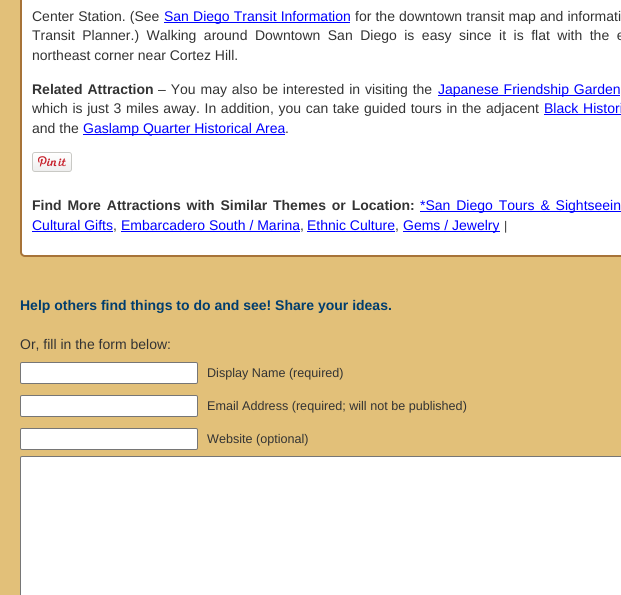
#include <cairo/cairo.h>
#include <math.h>
#include <stddef.h>

static cairo_t *cr;

static void use_color(int r, int g, int b) {
  cairo_set_source_rgb(cr, r / 255.0, g / 255.0, b / 255.0);
}

static void text(double x, double y, const char *s, const char *family, double size, int italic, int bold, int r, int g, int b) {
  cairo_select_font_face(cr, family, italic ? CAIRO_FONT_SLANT_ITALIC : CAIRO_FONT_SLANT_NORMAL,
    bold ? CAIRO_FONT_WEIGHT_BOLD : CAIRO_FONT_WEIGHT_NORMAL);
  cairo_set_font_size(cr, size);
  use_color(r, g, b);
  cairo_move_to(cr, x, y);
  cairo_show_text(cr, s);
}

static void spaced_text(double x, double y, const char *s, double letter, double word) {
  cairo_move_to(cr, x, y);
  while (*s) {
    char ch[5] = {0};
    int n = 0;
    do ch[n++] = *s++; while ((*s & 0xC0) == 0x80);
    cairo_show_text(cr, ch);
    cairo_rel_move_to(cr, letter + word * (*ch == ' '), 0);
  }
}

static void box(double x, double y, double w, double h, int r, int g, int b) {
  use_color(r, g, b);
  cairo_rectangle(cr, x, y, w, h);
  cairo_fill(cr);
}

static void round_rect(double x, double y, double w, double h, double r) {
  cairo_new_sub_path(cr);
  cairo_arc(cr, x + w - r, y + h - r, r, 0, M_PI / 2);
  cairo_arc(cr, x + r, y + h - r, r, M_PI / 2, M_PI);
  cairo_arc(cr, x + r, y + r, r, M_PI, 1.5 * M_PI);
  cairo_arc(cr, x + w - r, y + r, r, 1.5 * M_PI, 2 * M_PI);
  cairo_close_path(cr);
}

static void picture(const char *path, double x, double y, double w, double h) {
  cairo_surface_t *image = cairo_image_surface_create_from_png(path);
  cairo_save(cr);
  cairo_set_source_surface(cr, image, x, y);
  cairo_rectangle(cr, x, y, w, h);
  cairo_fill(cr);
  cairo_restore(cr);
  cairo_surface_destroy(image);
}

static void draw(void) {
  use_color(226, 192, 121);
  cairo_paint(cr);
  use_color(255, 255, 255);
  round_rect(21, -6, 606, 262, 4);
  cairo_fill_preserve(cr);
  use_color(167, 115, 56);
  cairo_stroke(cr);
  box(164, 22, 186, 1, 0, 0, 255);
  box(438, 95, 182, 1, 0, 0, 255);
  box(544, 114, 77, 1, 0, 0, 255);
  box(83, 134, 202, 1, 0, 0, 255);
  picture("img_01.png", 32, 152, 40, 20);
  box(420, 211, 201, 1, 0, 0, 255);
  box(32, 231, 81, 1, 0, 0, 255);
  box(121, 231, 179, 1, 0, 0, 255);
  box(307, 231, 88, 1, 0, 0, 255);
  box(403, 231, 97, 1, 0, 0, 255);
  use_color(255, 255, 255);
  round_rect(20.5, 362.5, 177, 21, 1.5);
  cairo_fill_preserve(cr);
  use_color(118, 118, 118);
  cairo_set_line_width(cr, 1);
  cairo_stroke(cr);
  use_color(255, 255, 255);
  round_rect(20.5, 395.5, 177, 21, 1.5);
  cairo_fill_preserve(cr);
  use_color(118, 118, 118);
  cairo_stroke(cr);
  use_color(255, 255, 255);
  round_rect(20.5, 428.5, 177, 21, 1.5);
  cairo_fill_preserve(cr);
  use_color(118, 118, 118);
  cairo_stroke(cr);
  use_color(255, 255, 255);
  round_rect(20.5, 456.5, 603, 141, 1.5);
  cairo_fill_preserve(cr);
  use_color(118, 118, 118);
  cairo_stroke(cr);
  cairo_select_font_face(cr, "Liberation Sans", CAIRO_FONT_SLANT_NORMAL, CAIRO_FONT_WEIGHT_NORMAL);
  cairo_set_font_size(cr, 14);
  use_color(51, 51, 51);
  spaced_text(32, 21, "Center Station. (See", 0, 0.25);
  use_color(0, 0, 255);
  spaced_text(164, 21, "San Diego Transit Information", 0, 0.25);
  use_color(51, 51, 51);
  spaced_text(355, 21, "for the downtown transit map and informati", 0, 0.25);
  spaced_text(32, 40, "Transit Planner.) Walking around Downtown San Diego is easy since it is flat with the e", 0, 3.6);
  text(32, 60, "northeast corner near Cortez Hill.", "Liberation Sans", 14, 0, 0, 51, 51, 51);
  cairo_select_font_face(cr, "Liberation Sans", CAIRO_FONT_SLANT_NORMAL, CAIRO_FONT_WEIGHT_BOLD);
  spaced_text(32, 94, "Related Attraction", 0, 1);
  cairo_select_font_face(cr, "Liberation Sans", CAIRO_FONT_SLANT_NORMAL, CAIRO_FONT_WEIGHT_NORMAL);
  spaced_text(158, 94, "– You may also be interested in visiting the", 0, 1);
  use_color(0, 0, 255);
  spaced_text(438, 94, "Japanese Friendship Garden", 0, 1);
  use_color(51, 51, 51);
  spaced_text(32, 113, "which is just 3 miles away. In addition, you can take guided tours in the adjacent", 0, 0.75);
  use_color(0, 0, 255);
  spaced_text(544, 113, "Black Histori", 0, 1);
  text(32, 133, "and the", "Liberation Sans", 14, 0, 0, 51, 51, 51);
  text(83, 133, "Gaslamp Quarter Historical Area", "Liberation Sans", 14, 0, 0, 0, 0, 255);
  text(285, 133, ".", "Liberation Sans", 14, 0, 0, 51, 51, 51);
  cairo_select_font_face(cr, "Liberation Sans", CAIRO_FONT_SLANT_NORMAL, CAIRO_FONT_WEIGHT_BOLD);
  spaced_text(32, 210, "Find More Attractions with Similar Themes or Location:", 0, 2);
  cairo_select_font_face(cr, "Liberation Sans", CAIRO_FONT_SLANT_NORMAL, CAIRO_FONT_WEIGHT_NORMAL);
  use_color(0, 0, 255);
  spaced_text(420, 210, "*San Diego Tours & Sightseein", 0, 2);
  text(32, 230, "Cultural Gifts", "Liberation Sans", 14, 0, 0, 0, 0, 255);
  text(113, 230, ",", "Liberation Sans", 14, 0, 0, 51, 51, 51);
  text(121, 230, "Embarcadero South / Marina", "Liberation Sans", 14, 0, 0, 0, 0, 255);
  text(300, 230, ",", "Liberation Sans", 14, 0, 0, 51, 51, 51);
  text(307, 230, "Ethnic Culture", "Liberation Sans", 14, 0, 0, 0, 0, 255);
  text(395, 230, ",", "Liberation Sans", 14, 0, 0, 51, 51, 51);
  text(403, 230, "Gems / Jewelry", "Liberation Sans", 14, 0, 0, 0, 0, 255);
  text(504, 230, "|", "Liberation Sans", 12.6, 0, 0, 51, 51, 51);
  text(20, 310, "Help others find things to do and see! Share your ideas.", "Liberation Sans", 14, 0, 1, 0, 61, 110);
  text(20, 349, "Or, fill in the form below:", "Liberation Sans", 14, 0, 0, 51, 51, 51);
  text(207, 377, "Display Name (required)", "Liberation Sans", 12.6, 0, 0, 51, 51, 51);
  text(207, 410, "Email Address (required; will not be published)", "Liberation Sans", 12.6, 0, 0, 51, 51, 51);
  text(207, 443, "Website (optional)", "Liberation Sans", 12.6, 0, 0, 51, 51, 51);
}

int main(void) {
  cairo_surface_t *surface = cairo_image_surface_create(CAIRO_FORMAT_RGB24, 621, 595);
  cr = cairo_create(surface);
  cairo_font_options_t *options = cairo_font_options_create();
  cairo_font_options_set_hint_metrics(options, CAIRO_HINT_METRICS_OFF);
  cairo_font_options_set_hint_style(options, CAIRO_HINT_STYLE_NONE);
  cairo_set_font_options(cr, options);
  cairo_set_miter_limit(cr, 4);
  draw();
  cairo_surface_write_to_png(surface, "out.png");
  cairo_font_options_destroy(options);
  cairo_destroy(cr);
  cairo_surface_destroy(surface);
  return 0;
}
